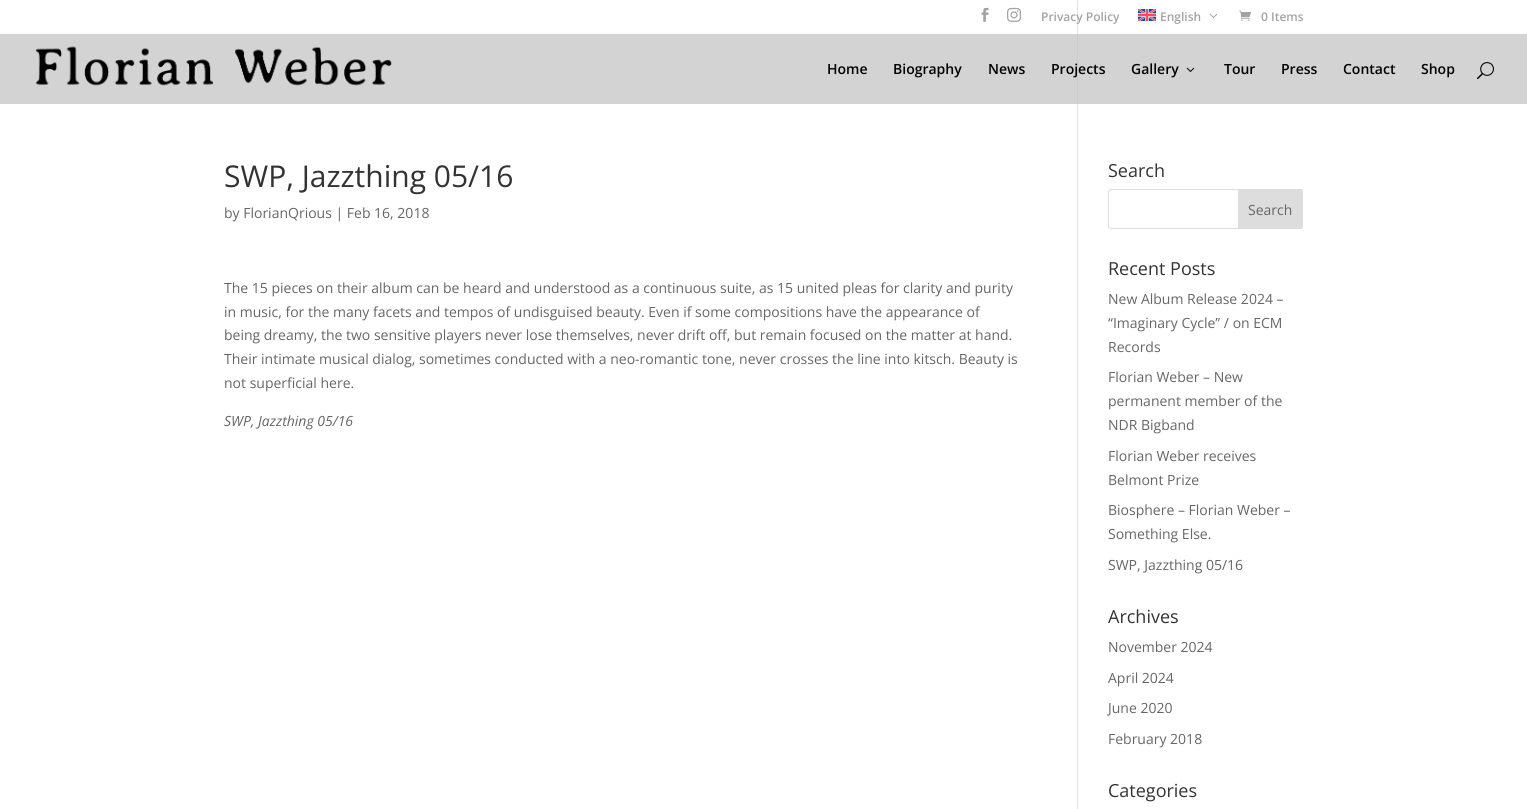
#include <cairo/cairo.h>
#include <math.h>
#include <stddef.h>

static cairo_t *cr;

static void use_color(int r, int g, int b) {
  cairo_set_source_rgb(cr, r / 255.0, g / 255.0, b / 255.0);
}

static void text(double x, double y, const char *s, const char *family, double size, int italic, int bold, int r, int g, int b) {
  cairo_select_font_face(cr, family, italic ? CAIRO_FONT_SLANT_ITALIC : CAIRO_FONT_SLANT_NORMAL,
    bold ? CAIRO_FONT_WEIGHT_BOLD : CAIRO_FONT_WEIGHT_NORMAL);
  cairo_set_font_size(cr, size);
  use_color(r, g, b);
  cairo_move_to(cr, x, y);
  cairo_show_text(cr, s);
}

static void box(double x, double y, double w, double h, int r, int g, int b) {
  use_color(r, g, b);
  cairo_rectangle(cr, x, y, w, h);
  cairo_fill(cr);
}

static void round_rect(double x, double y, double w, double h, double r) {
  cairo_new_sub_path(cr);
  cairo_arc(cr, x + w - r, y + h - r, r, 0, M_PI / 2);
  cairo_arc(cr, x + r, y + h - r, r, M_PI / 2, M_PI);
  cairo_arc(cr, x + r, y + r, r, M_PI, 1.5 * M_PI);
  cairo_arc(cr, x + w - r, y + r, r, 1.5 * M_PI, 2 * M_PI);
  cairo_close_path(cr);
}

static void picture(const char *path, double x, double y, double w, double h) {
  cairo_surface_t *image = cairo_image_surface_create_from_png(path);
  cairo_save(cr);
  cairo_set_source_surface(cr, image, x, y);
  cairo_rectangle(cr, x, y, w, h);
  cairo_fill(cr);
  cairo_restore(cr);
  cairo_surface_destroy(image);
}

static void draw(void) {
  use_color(255, 255, 255);
  cairo_paint(cr);
  box(0, 34, 1527, 70, 211, 211, 211);
  picture("img_01.png", 981, 7, 8, 15);
  picture("img_02.png", 1007, 7, 14, 15);
  picture("img_03.png", 1138, 9, 18, 12);
  picture("img_04.png", 1209, 13, 9, 5);
  picture("img_05.png", 1239, 10, 12, 11);
  picture("img_06.png", 36, 46, 356, 40);
  picture("img_07.png", 1186, 67, 9, 5);
  picture("img_08.png", 1477, 62, 17, 18);
  box(1077, 0, 1, 809, 226, 226, 226);
  box(1077, 34, 1, 70, 203, 203, 203);
  round_rect(1108.5, 189.5, 194, 39, 2.5);
  use_color(221, 221, 221);
  cairo_set_line_width(cr, 1);
  cairo_stroke(cr);
  cairo_new_path(cr);
  cairo_move_to(cr, 1238.5, 189.5);
  cairo_line_to(cr, 1300, 189.5);
  cairo_curve_to(cr, 1301.5, 189.5, 1302.5, 190.5, 1302.5, 192);
  cairo_line_to(cr, 1302.5, 226);
  cairo_curve_to(cr, 1302.5, 227.5, 1301.5, 228.5, 1300, 228.5);
  cairo_line_to(cr, 1238.5, 228.5);
  cairo_close_path(cr);
  cairo_fill_preserve(cr);
  cairo_stroke(cr);
  text(1041, 21, "Privacy Policy", "Open Sans SemiBold", 12, 0, 0, 163, 163, 163);
  text(1160, 21, "English", "Open Sans SemiBold", 12, 0, 0, 163, 163, 163);
  text(1261, 21, "0 Items", "Open Sans SemiBold", 12, 0, 0, 163, 163, 163);
  text(827, 74, "Home", "Open Sans SemiBold", 14, 0, 0, 0, 0, 0);
  text(893, 74, "Biography", "Open Sans SemiBold", 14, 0, 0, 0, 0, 0);
  text(988, 74, "News", "Open Sans SemiBold", 14, 0, 0, 0, 0, 0);
  text(1051, 74, "Projects", "Open Sans SemiBold", 14, 0, 0, 0, 0, 0);
  text(1131, 74, "Gallery", "Open Sans SemiBold", 14, 0, 0, 0, 0, 0);
  text(1224, 74, "Tour", "Open Sans SemiBold", 14, 0, 0, 0, 0, 0);
  text(1281, 74, "Press", "Open Sans SemiBold", 14, 0, 0, 0, 0, 0);
  text(1343, 74, "Contact", "Open Sans SemiBold", 14, 0, 0, 0, 0, 0);
  text(1421, 74, "Shop", "Open Sans SemiBold", 14, 0, 0, 0, 0, 0);
  text(224, 187, "SWP, Jazzthing 05/16", "Open Sans", 30, 0, 0, 51, 51, 51);
  text(224, 218, "by FlorianQrious | Feb 16, 2018", "Open Sans", 14, 0, 0, 102, 102, 102);
  text(224, 293, "The 15 pieces on their album can be heard and understood as a continuous suite, as 15 united pleas for clarity and purity", "Open Sans", 14, 0, 0, 102, 102, 102);
  text(224, 317, "in music, for the many facets and tempos of undisguised beauty. Even if some compositions have the appearance of", "Open Sans", 14, 0, 0, 102, 102, 102);
  text(224, 340, "being dreamy, the two sensitive players never lose themselves, never drift off, but remain focused on the matter at hand.", "Open Sans", 14, 0, 0, 102, 102, 102);
  text(224, 364, "Their intimate musical dialog, sometimes conducted with a neo-romantic tone, never crosses the line into kitsch. Beauty is", "Open Sans", 14, 0, 0, 102, 102, 102);
  text(224, 388, "not superficial here.", "Open Sans", 14, 0, 0, 102, 102, 102);
  text(224, 426, "SWP, Jazzthing 05/16", "Open Sans", 14, 1, 0, 102, 102, 102);
  text(1108, 177, "Search", "Open Sans", 18, 0, 0, 51, 51, 51);
  text(1248, 215, "Search", "Open Sans", 14, 0, 0, 102, 102, 102);
  text(1108, 275, "Recent Posts", "Open Sans", 18, 0, 0, 51, 51, 51);
  text(1108, 304, "New Album Release 2024 –", "Open Sans", 14, 0, 0, 102, 102, 102);
  text(1108, 328, "“Imaginary Cycle” / on ECM", "Open Sans", 14, 0, 0, 102, 102, 102);
  text(1108, 352, "Records", "Open Sans", 14, 0, 0, 102, 102, 102);
  text(1108, 382, "Florian Weber – New", "Open Sans", 14, 0, 0, 102, 102, 102);
  text(1108, 406, "permanent member of the", "Open Sans", 14, 0, 0, 102, 102, 102);
  text(1108, 430, "NDR Bigband", "Open Sans", 14, 0, 0, 102, 102, 102);
  text(1108, 461, "Florian Weber receives", "Open Sans", 14, 0, 0, 102, 102, 102);
  text(1108, 485, "Belmont Prize", "Open Sans", 14, 0, 0, 102, 102, 102);
  text(1108, 515, "Biosphere – Florian Weber –", "Open Sans", 14, 0, 0, 102, 102, 102);
  text(1108, 539, "Something Else.", "Open Sans", 14, 0, 0, 102, 102, 102);
  text(1108, 570, "SWP, Jazzthing 05/16", "Open Sans", 14, 0, 0, 102, 102, 102);
  text(1108, 623, "Archives", "Open Sans", 18, 0, 0, 51, 51, 51);
  text(1108, 652, "November 2024", "Open Sans", 14, 0, 0, 102, 102, 102);
  text(1108, 683, "April 2024", "Open Sans", 14, 0, 0, 102, 102, 102);
  text(1108, 713, "June 2020", "Open Sans", 14, 0, 0, 102, 102, 102);
  text(1108, 744, "February 2018", "Open Sans", 14, 0, 0, 102, 102, 102);
  text(1108, 797, "Categories", "Open Sans", 18, 0, 0, 51, 51, 51);
}

int main(void) {
  cairo_surface_t *surface = cairo_image_surface_create(CAIRO_FORMAT_RGB24, 1527, 809);
  cr = cairo_create(surface);
  cairo_font_options_t *options = cairo_font_options_create();
  cairo_font_options_set_hint_metrics(options, CAIRO_HINT_METRICS_OFF);
  cairo_font_options_set_hint_style(options, CAIRO_HINT_STYLE_NONE);
  cairo_set_font_options(cr, options);
  cairo_set_miter_limit(cr, 4);
  draw();
  cairo_surface_write_to_png(surface, "out.png");
  cairo_font_options_destroy(options);
  cairo_destroy(cr);
  cairo_surface_destroy(surface);
  return 0;
}
